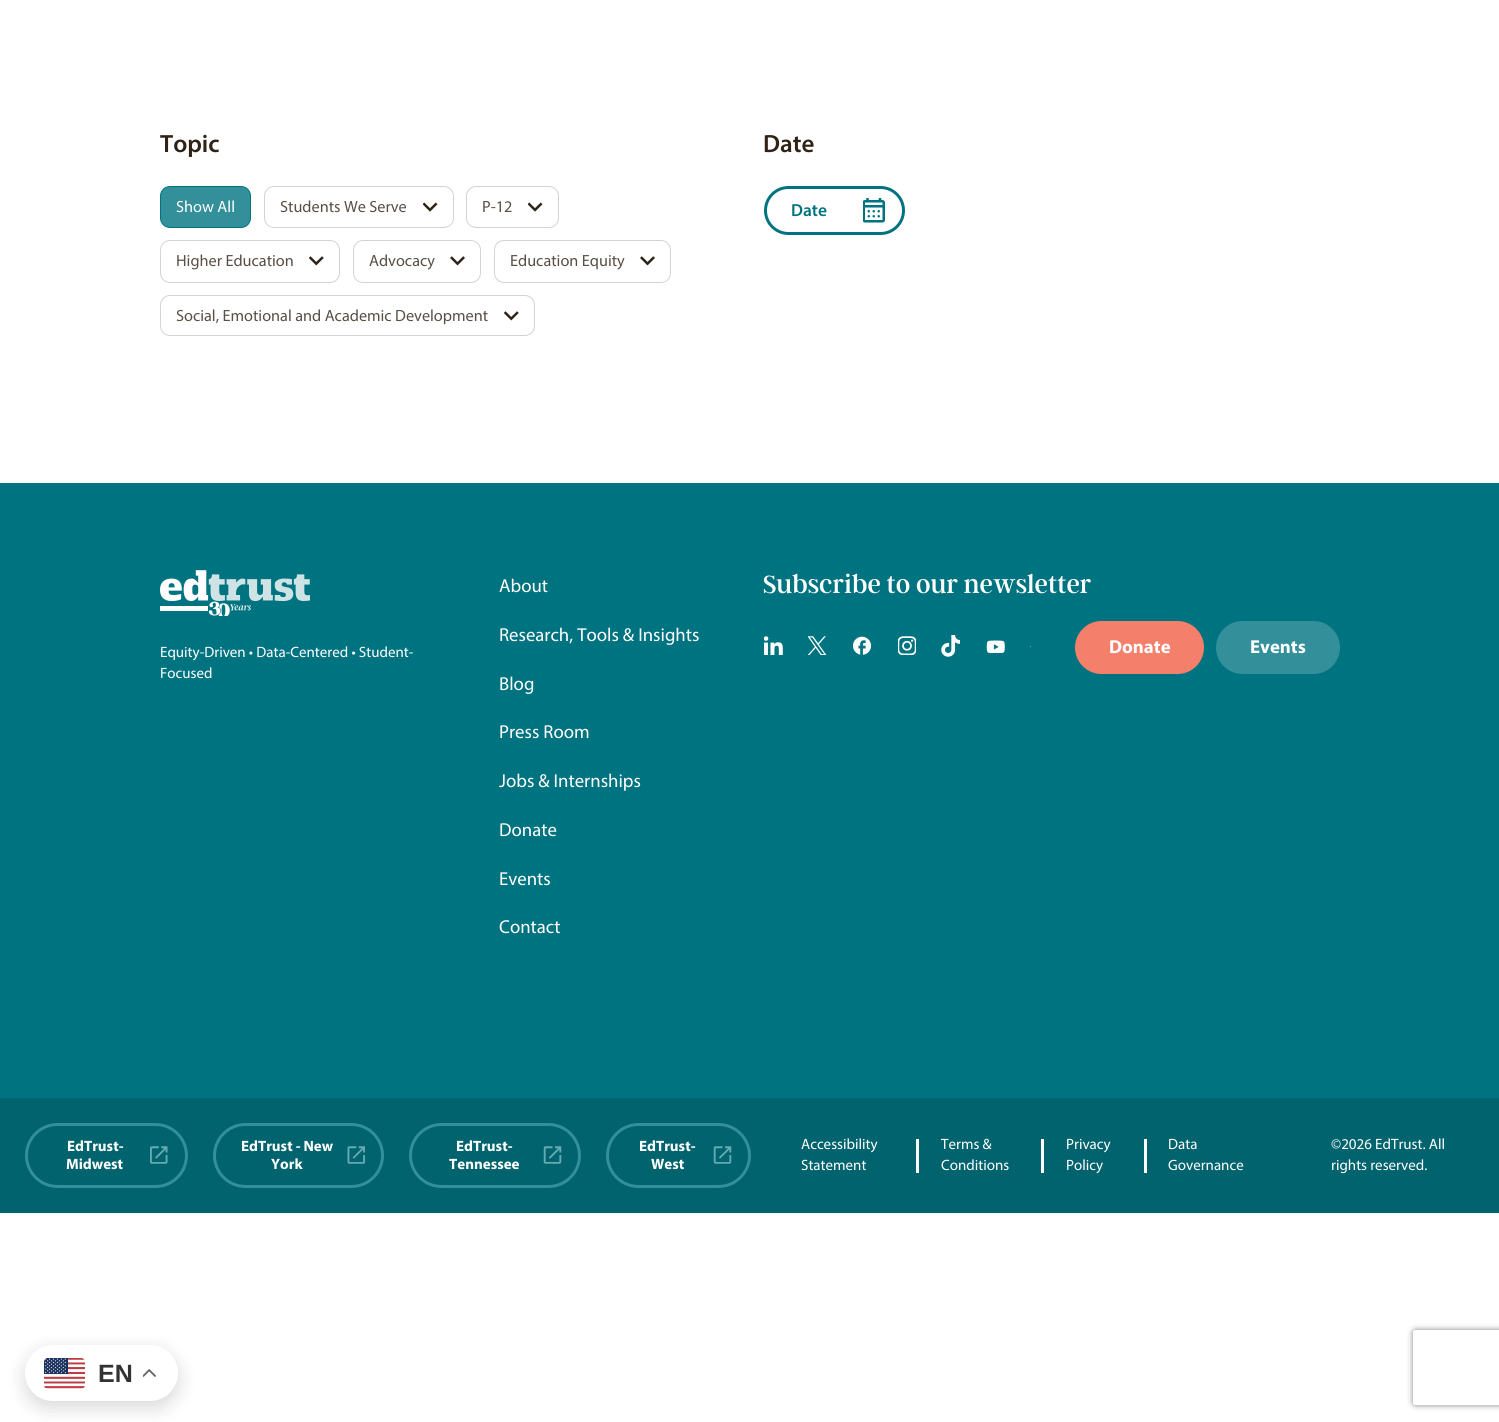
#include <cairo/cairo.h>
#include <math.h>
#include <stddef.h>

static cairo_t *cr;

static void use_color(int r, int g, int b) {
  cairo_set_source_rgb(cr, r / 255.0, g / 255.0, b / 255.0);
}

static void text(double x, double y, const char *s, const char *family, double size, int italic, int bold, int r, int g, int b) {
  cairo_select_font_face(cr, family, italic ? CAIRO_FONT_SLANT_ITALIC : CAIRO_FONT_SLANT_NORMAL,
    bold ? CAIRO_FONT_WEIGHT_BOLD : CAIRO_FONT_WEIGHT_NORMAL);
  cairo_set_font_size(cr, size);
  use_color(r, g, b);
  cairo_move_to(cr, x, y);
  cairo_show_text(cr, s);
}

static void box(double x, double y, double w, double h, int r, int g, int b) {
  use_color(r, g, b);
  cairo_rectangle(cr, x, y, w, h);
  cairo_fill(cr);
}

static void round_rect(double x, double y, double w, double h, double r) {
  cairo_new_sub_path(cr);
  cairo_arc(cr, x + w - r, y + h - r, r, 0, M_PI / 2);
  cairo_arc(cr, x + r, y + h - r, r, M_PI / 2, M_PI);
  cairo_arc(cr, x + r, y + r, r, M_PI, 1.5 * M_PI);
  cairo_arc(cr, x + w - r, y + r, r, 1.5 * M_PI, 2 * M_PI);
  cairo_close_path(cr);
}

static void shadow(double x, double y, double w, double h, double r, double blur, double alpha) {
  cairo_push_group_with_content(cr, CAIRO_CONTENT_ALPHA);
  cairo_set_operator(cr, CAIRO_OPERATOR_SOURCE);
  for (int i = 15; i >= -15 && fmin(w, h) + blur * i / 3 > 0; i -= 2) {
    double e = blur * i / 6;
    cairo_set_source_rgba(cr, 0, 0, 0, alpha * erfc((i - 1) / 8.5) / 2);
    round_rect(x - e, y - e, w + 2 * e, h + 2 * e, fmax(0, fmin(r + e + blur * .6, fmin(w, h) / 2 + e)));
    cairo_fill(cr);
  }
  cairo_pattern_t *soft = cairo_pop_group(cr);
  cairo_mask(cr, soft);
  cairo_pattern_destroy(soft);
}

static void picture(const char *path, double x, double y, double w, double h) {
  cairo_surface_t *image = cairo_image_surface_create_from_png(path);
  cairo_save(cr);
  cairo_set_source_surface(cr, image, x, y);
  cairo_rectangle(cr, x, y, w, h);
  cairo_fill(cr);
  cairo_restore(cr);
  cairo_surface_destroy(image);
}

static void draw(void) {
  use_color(255, 255, 255);
  cairo_paint(cr);
  use_color(51, 143, 153);
  round_rect(160.5, 186.5, 90, 41, 9.5);
  cairo_fill_preserve(cr);
  use_color(0, 115, 128);
  cairo_set_line_width(cr, 1);
  cairo_stroke(cr);
  round_rect(264.5, 186.5, 189, 41, 9.5);
  use_color(213, 211, 208);
  cairo_stroke(cr);
  picture("img_01.png", 423, 202, 15, 10);
  round_rect(466.5, 186.5, 92, 41, 9.5);
  cairo_stroke(cr);
  picture("img_01.png", 528, 202, 15, 10);
  round_rect(160.5, 240.5, 179, 42, 9.5);
  cairo_stroke(cr);
  picture("img_02.png", 309, 256, 15, 10);
  round_rect(353.5, 240.5, 127, 42, 9.5);
  cairo_stroke(cr);
  picture("img_03.png", 450, 256, 15, 10);
  round_rect(494.5, 240.5, 176, 42, 9.5);
  cairo_stroke(cr);
  picture("img_03.png", 640, 256, 15, 10);
  round_rect(160.5, 295.5, 374, 40, 9.5);
  cairo_stroke(cr);
  picture("img_02.png", 504, 311, 15, 10);
  round_rect(765.5, 187.5, 138, 46, 23);
  use_color(0, 115, 128);
  cairo_set_line_width(cr, 3);
  cairo_stroke(cr);
  picture("img_04.png", 863, 198, 22, 25);
  box(0, 483, 1499, 615, 0, 115, 128);
  picture("img_05.png", 160, 570, 150, 46);
  picture("img_06.png", 764, 636, 19, 19);
  picture("img_07.png", 808, 636, 19, 19);
  picture("img_08.png", 853, 636, 18, 19);
  picture("img_09.png", 898, 636, 18, 19);
  picture("img_10.png", 941, 635, 19, 22);
  picture("img_11.png", 986, 640, 19, 13);
  box(1030, 646, 1, 1, 105, 172, 180);
  use_color(244, 127, 106);
  round_rect(1076.5, 622.5, 126, 50, 25);
  cairo_fill_preserve(cr);
  cairo_stroke(cr);
  use_color(51, 143, 153);
  round_rect(1217.5, 622.5, 121, 50, 25);
  cairo_fill_preserve(cr);
  cairo_stroke(cr);
  box(0, 1098, 1499, 115, 0, 99, 110);
  round_rect(26.5, 1124.5, 160, 62, 31);
  use_color(51, 143, 153);
  cairo_stroke(cr);
  picture("img_12.png", 150, 1146, 18, 18);
  round_rect(214.5, 1124.5, 168, 62, 31);
  cairo_stroke(cr);
  picture("img_13.png", 347, 1146, 18, 18);
  round_rect(410.5, 1124.5, 169, 62, 31);
  cairo_stroke(cr);
  picture("img_14.png", 543, 1146, 19, 18);
  round_rect(607.5, 1124.5, 142, 62, 31);
  cairo_stroke(cr);
  picture("img_14.png", 713, 1146, 19, 18);
  box(916, 1139, 3, 34, 255, 255, 255);
  box(1041, 1139, 3, 34, 255, 255, 255);
  box(1144, 1139, 3, 34, 255, 255, 255);
  use_color(0, 0, 0);
  shadow(25, 1351, 153, 57, 28.5, 9.5, 0.15);
  use_color(255, 255, 255);
  round_rect(25, 1345, 153, 56, 28);
  cairo_fill(cr);
  picture("img_15.png", 44, 1358, 41, 31);
  picture("img_16.png", 143, 1369, 13, 8);
  cairo_save(cr);
  cairo_set_fill_rule(cr, CAIRO_FILL_RULE_EVEN_ODD);
  cairo_new_path(cr);
  cairo_move_to(cr, 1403, 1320);
  cairo_line_to(cr, 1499, 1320);
  cairo_line_to(cr, 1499, 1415);
  cairo_line_to(cr, 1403, 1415);
  cairo_close_path(cr);
  cairo_move_to(cr, 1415.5, 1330);
  cairo_line_to(cr, 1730.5, 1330);
  cairo_curve_to(cr, 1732, 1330, 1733, 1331, 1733, 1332.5);
  cairo_line_to(cr, 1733, 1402.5);
  cairo_curve_to(cr, 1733, 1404, 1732, 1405, 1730.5, 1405);
  cairo_line_to(cr, 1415.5, 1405);
  cairo_curve_to(cr, 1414, 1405, 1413, 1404, 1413, 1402.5);
  cairo_line_to(cr, 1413, 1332.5);
  cairo_curve_to(cr, 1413, 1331, 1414, 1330, 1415.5, 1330);
  cairo_close_path(cr);
  cairo_clip(cr);
  use_color(128, 128, 128);
  shadow(1413, 1330, 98, 75, 2.5, 3, 1);
  cairo_restore(cr);
  text(160, 152, "Topic", "Myriad SemiBold", 25, 0, 0, 47, 35, 22);
  text(176, 212, "Show All", "Myriad", 16.25, 0, 0, 255, 255, 255);
  text(280, 212, "Students We Serve", "Myriad", 16.25, 0, 0, 89, 79, 69);
  text(482, 212, "P-12", "Myriad", 16.25, 0, 0, 89, 79, 69);
  text(176, 266, "Higher Education", "Myriad", 16.25, 0, 0, 89, 79, 69);
  text(369, 266, "Advocacy", "Myriad", 16.25, 0, 0, 89, 79, 69);
  text(510, 266, "Education Equity", "Myriad", 16.25, 0, 0, 89, 79, 69);
  text(176, 321, "Social, Emotional and Academic Development", "Myriad", 16.25, 0, 0, 89, 79, 69);
  text(763, 152, "Date", "Myriad SemiBold", 25, 0, 0, 47, 35, 22);
  text(791, 216, "Date", "Myriad SemiBold", 17.5, 0, 0, 0, 115, 128);
  text(160, 657, "Equity-Driven • Data-Centered • Student-", "Myriad", 15, 0, 0, 255, 255, 255);
  text(160, 678, "Focused", "Myriad", 15, 0, 0, 255, 255, 255);
  text(499, 592, "About", "Myriad", 18.75, 0, 0, 255, 255, 255);
  text(499, 641, "Research, Tools & Insights", "Myriad", 18.75, 0, 0, 255, 255, 255);
  text(499, 690, "Blog", "Myriad", 18.75, 0, 0, 255, 255, 255);
  text(499, 738, "Press Room", "Myriad", 18.75, 0, 0, 255, 255, 255);
  text(499, 787, "Jobs & Internships", "Myriad", 18.75, 0, 0, 255, 255, 255);
  text(499, 836, "Donate", "Myriad", 18.75, 0, 0, 255, 255, 255);
  text(499, 885, "Events", "Myriad", 18.75, 0, 0, 255, 255, 255);
  text(499, 933, "Contact", "Myriad", 18.75, 0, 0, 255, 255, 255);
  text(763, 593, "Subscribe to our newsletter", "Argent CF", 27.5, 0, 0, 255, 255, 255);
  text(1109, 653, "Donate", "Myriad", 18.75, 0, 1, 255, 255, 255);
  text(1250, 653, "Events", "Myriad", 18.75, 0, 1, 255, 255, 255);
  text(67, 1151, "EdTrust-", "Myriad", 15, 0, 1, 255, 255, 255);
  text(66, 1169, "Midwest", "Myriad", 15, 0, 1, 255, 255, 255);
  text(241, 1151, "EdTrust - New", "Myriad", 15, 0, 1, 255, 255, 255);
  text(271, 1169, "York", "Myriad", 15, 0, 1, 255, 255, 255);
  text(456, 1151, "EdTrust-", "Myriad", 15, 0, 1, 255, 255, 255);
  text(449, 1169, "Tennessee", "Myriad", 15, 0, 1, 255, 255, 255);
  text(639, 1151, "EdTrust-", "Myriad", 15, 0, 1, 255, 255, 255);
  text(651, 1169, "West", "Myriad", 15, 0, 1, 255, 255, 255);
  text(801, 1149, "Accessibility", "Myriad", 15, 0, 0, 255, 255, 255);
  text(801, 1170, "Statement", "Myriad", 15, 0, 0, 255, 255, 255);
  text(941, 1149, "Terms &", "Myriad", 15, 0, 0, 255, 255, 255);
  text(941, 1170, "Conditions", "Myriad", 15, 0, 0, 255, 255, 255);
  text(1066, 1149, "Privacy", "Myriad", 15, 0, 0, 255, 255, 255);
  text(1066, 1170, "Policy", "Myriad", 15, 0, 0, 255, 255, 255);
  text(1168, 1149, "Data", "Myriad", 15, 0, 0, 255, 255, 255);
  text(1168, 1170, "Governance", "Myriad", 15, 0, 0, 255, 255, 255);
  text(1331, 1149, "©2026 EdTrust. All", "Myriad", 15, 0, 0, 255, 255, 255);
  text(1331, 1170, "rights reserved.", "Myriad", 15, 0, 0, 255, 255, 255);
  text(98, 1382, "EN", "Liberation Sans", 25, 0, 1, 51, 51, 51);
}

int main(void) {
  cairo_surface_t *surface = cairo_image_surface_create(CAIRO_FORMAT_RGB24, 1499, 1422);
  cr = cairo_create(surface);
  cairo_font_options_t *options = cairo_font_options_create();
  cairo_font_options_set_hint_metrics(options, CAIRO_HINT_METRICS_OFF);
  cairo_font_options_set_hint_style(options, CAIRO_HINT_STYLE_NONE);
  cairo_set_font_options(cr, options);
  cairo_set_miter_limit(cr, 4);
  draw();
  cairo_surface_write_to_png(surface, "out.png");
  cairo_font_options_destroy(options);
  cairo_destroy(cr);
  cairo_surface_destroy(surface);
  return 0;
}
